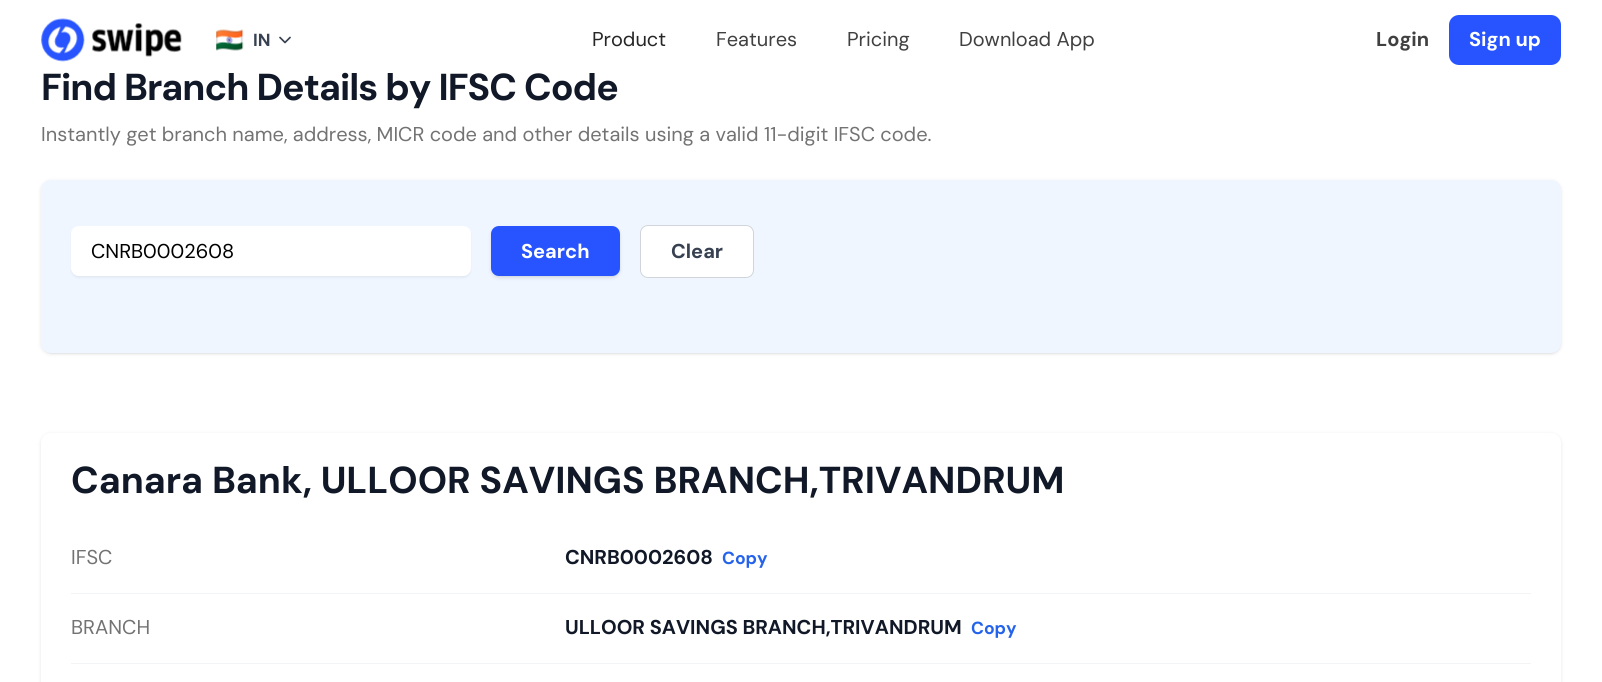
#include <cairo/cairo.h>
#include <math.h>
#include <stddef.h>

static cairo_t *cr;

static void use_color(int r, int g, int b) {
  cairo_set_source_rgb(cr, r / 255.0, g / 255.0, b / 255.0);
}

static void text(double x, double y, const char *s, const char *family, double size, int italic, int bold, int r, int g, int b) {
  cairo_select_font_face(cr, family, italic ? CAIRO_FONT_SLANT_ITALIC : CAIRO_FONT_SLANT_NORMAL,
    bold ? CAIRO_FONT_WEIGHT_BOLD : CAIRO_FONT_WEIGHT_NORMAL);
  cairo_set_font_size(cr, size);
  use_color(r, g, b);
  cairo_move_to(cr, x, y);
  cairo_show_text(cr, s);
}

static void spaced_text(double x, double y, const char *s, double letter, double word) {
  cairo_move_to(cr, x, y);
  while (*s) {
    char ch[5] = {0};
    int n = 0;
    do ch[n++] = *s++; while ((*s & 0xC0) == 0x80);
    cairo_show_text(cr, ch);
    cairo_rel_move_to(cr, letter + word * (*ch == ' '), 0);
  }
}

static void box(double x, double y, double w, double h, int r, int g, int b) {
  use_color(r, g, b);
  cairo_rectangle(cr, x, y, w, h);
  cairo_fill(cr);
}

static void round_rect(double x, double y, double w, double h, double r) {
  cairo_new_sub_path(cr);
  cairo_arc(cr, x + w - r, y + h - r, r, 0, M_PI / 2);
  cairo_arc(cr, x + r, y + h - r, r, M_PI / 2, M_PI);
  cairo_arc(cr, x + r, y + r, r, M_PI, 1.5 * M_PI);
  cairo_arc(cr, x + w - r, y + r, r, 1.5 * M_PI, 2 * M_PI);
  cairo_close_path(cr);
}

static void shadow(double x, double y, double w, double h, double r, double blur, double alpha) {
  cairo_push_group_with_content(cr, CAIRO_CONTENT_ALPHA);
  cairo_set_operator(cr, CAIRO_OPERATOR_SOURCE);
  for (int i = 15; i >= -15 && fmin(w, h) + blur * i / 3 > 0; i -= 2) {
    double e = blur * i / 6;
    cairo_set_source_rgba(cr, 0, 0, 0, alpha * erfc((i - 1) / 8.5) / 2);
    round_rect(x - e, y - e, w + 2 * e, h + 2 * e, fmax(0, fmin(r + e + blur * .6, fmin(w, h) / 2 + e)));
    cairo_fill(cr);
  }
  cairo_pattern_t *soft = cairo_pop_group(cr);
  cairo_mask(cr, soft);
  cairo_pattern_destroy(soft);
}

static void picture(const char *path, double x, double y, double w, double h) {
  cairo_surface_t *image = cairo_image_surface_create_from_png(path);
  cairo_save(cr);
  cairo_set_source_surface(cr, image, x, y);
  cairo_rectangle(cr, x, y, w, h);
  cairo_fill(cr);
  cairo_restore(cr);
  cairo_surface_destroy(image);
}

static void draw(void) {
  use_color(255, 255, 255);
  cairo_paint(cr);
  picture("img_01.png", 41, 18, 141, 44);
  picture("img_02.png", 216, 29, 28, 22);
  cairo_new_path(cr);
  cairo_move_to(cr, 280, 37.5);
  cairo_line_to(cr, 285, 42.5);
  cairo_line_to(cr, 290, 37.5);
  use_color(55, 65, 81);
  cairo_set_line_width(cr, 1.7);
  cairo_set_line_cap(cr, CAIRO_LINE_CAP_ROUND);
  cairo_set_line_join(cr, CAIRO_LINE_JOIN_ROUND);
  cairo_stroke(cr);
  use_color(39, 84, 255);
  round_rect(1449, 15, 112, 50, 10);
  cairo_fill(cr);
  use_color(0, 0, 0);
  shadow(43, 183, 1517, 170, 9, 1, 0.1);
  shadow(41, 181, 1520, 173, 10, 2, 0.1);
  use_color(239, 246, 255);
  round_rect(41, 180, 1520, 173, 10);
  cairo_fill(cr);
  use_color(0, 0, 0);
  shadow(71, 228, 400, 50, 8, 1, 0.05);
  use_color(255, 255, 255);
  round_rect(71, 226, 400, 50, 8);
  cairo_fill(cr);
  use_color(0, 0, 0);
  shadow(493, 229, 126, 47, 6, 1, 0.1);
  shadow(491, 228, 129, 50, 8, 2, 0.1);
  use_color(39, 84, 255);
  round_rect(491, 226, 129, 50, 8);
  cairo_fill(cr);
  use_color(255, 255, 255);
  round_rect(640.5, 225.5, 113, 52, 7.5);
  cairo_fill_preserve(cr);
  use_color(209, 213, 219);
  cairo_set_line_width(cr, 1);
  cairo_set_line_cap(cr, CAIRO_LINE_CAP_BUTT);
  cairo_set_line_join(cr, CAIRO_LINE_JOIN_MITER);
  cairo_stroke(cr);
  use_color(0, 0, 0);
  shadow(41, 434, 1520, 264, 10, 2, 0.1);
  use_color(255, 255, 255);
  round_rect(41, 433, 1520, 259, 10);
  cairo_fill(cr);
  box(71, 593, 1460, 1, 243, 244, 246);
  box(71, 663, 1460, 1, 243, 244, 246);
  text(253, 46, "IN", "DM Sans", 17.5, 0, 1, 55, 65, 81);
  text(592, 46, "Product", "DM Sans", 20, 0, 0, 38, 38, 38);
  text(716, 46, "Features", "DM Sans", 20, 0, 0, 64, 64, 64);
  text(847, 46, "Pricing", "DM Sans", 20, 0, 0, 64, 64, 64);
  text(959, 46, "Download App", "DM Sans", 20, 0, 0, 64, 64, 64);
  text(1376, 46, "Login", "DM Sans", 20, 0, 1, 64, 64, 64);
  text(1469, 46, "Sign up", "DM Sans", 20, 0, 1, 255, 255, 255);
  cairo_set_font_size(cr, 37.5);
  use_color(17, 24, 39);
  spaced_text(41, 100, "Find Branch Details by IFSC Code", -0.95, 0);
  text(41, 141, "Instantly get branch name, address, MICR code and other details using a valid 11-digit IFSC code.", "DM Sans", 20, 0, 0, 115, 115, 115);
  text(91, 258, "CNRB0002608", "DM Sans", 20, 0, 0, 0, 0, 0);
  text(521, 258, "Search", "DM Sans", 20, 0, 1, 255, 255, 255);
  text(671, 258, "Clear", "DM Sans", 20, 0, 1, 55, 65, 81);
  text(71, 493, "Canara Bank, ULLOOR SAVINGS BRANCH,TRIVANDRUM", "DM Sans", 37.5, 0, 1, 17, 24, 39);
  text(71, 564, "IFSC", "DM Sans", 20, 0, 0, 115, 115, 115);
  text(565, 564, "CNRB0002608", "DM Sans", 20, 0, 1, 17, 24, 39);
  text(722, 564, "Copy", "DM Sans", 17.5, 0, 1, 37, 99, 235);
  text(71, 634, "BRANCH", "DM Sans", 20, 0, 0, 115, 115, 115);
  text(565, 634, "ULLOOR SAVINGS BRANCH,TRIVANDRUM", "DM Sans", 20, 0, 1, 17, 24, 39);
  text(971, 634, "Copy", "DM Sans", 17.5, 0, 1, 37, 99, 235);
}

int main(void) {
  cairo_surface_t *surface = cairo_image_surface_create(CAIRO_FORMAT_RGB24, 1602, 682);
  cr = cairo_create(surface);
  cairo_font_options_t *options = cairo_font_options_create();
  cairo_font_options_set_hint_metrics(options, CAIRO_HINT_METRICS_OFF);
  cairo_font_options_set_hint_style(options, CAIRO_HINT_STYLE_NONE);
  cairo_set_font_options(cr, options);
  cairo_set_miter_limit(cr, 4);
  draw();
  cairo_surface_write_to_png(surface, "out.png");
  cairo_font_options_destroy(options);
  cairo_destroy(cr);
  cairo_surface_destroy(surface);
  return 0;
}
